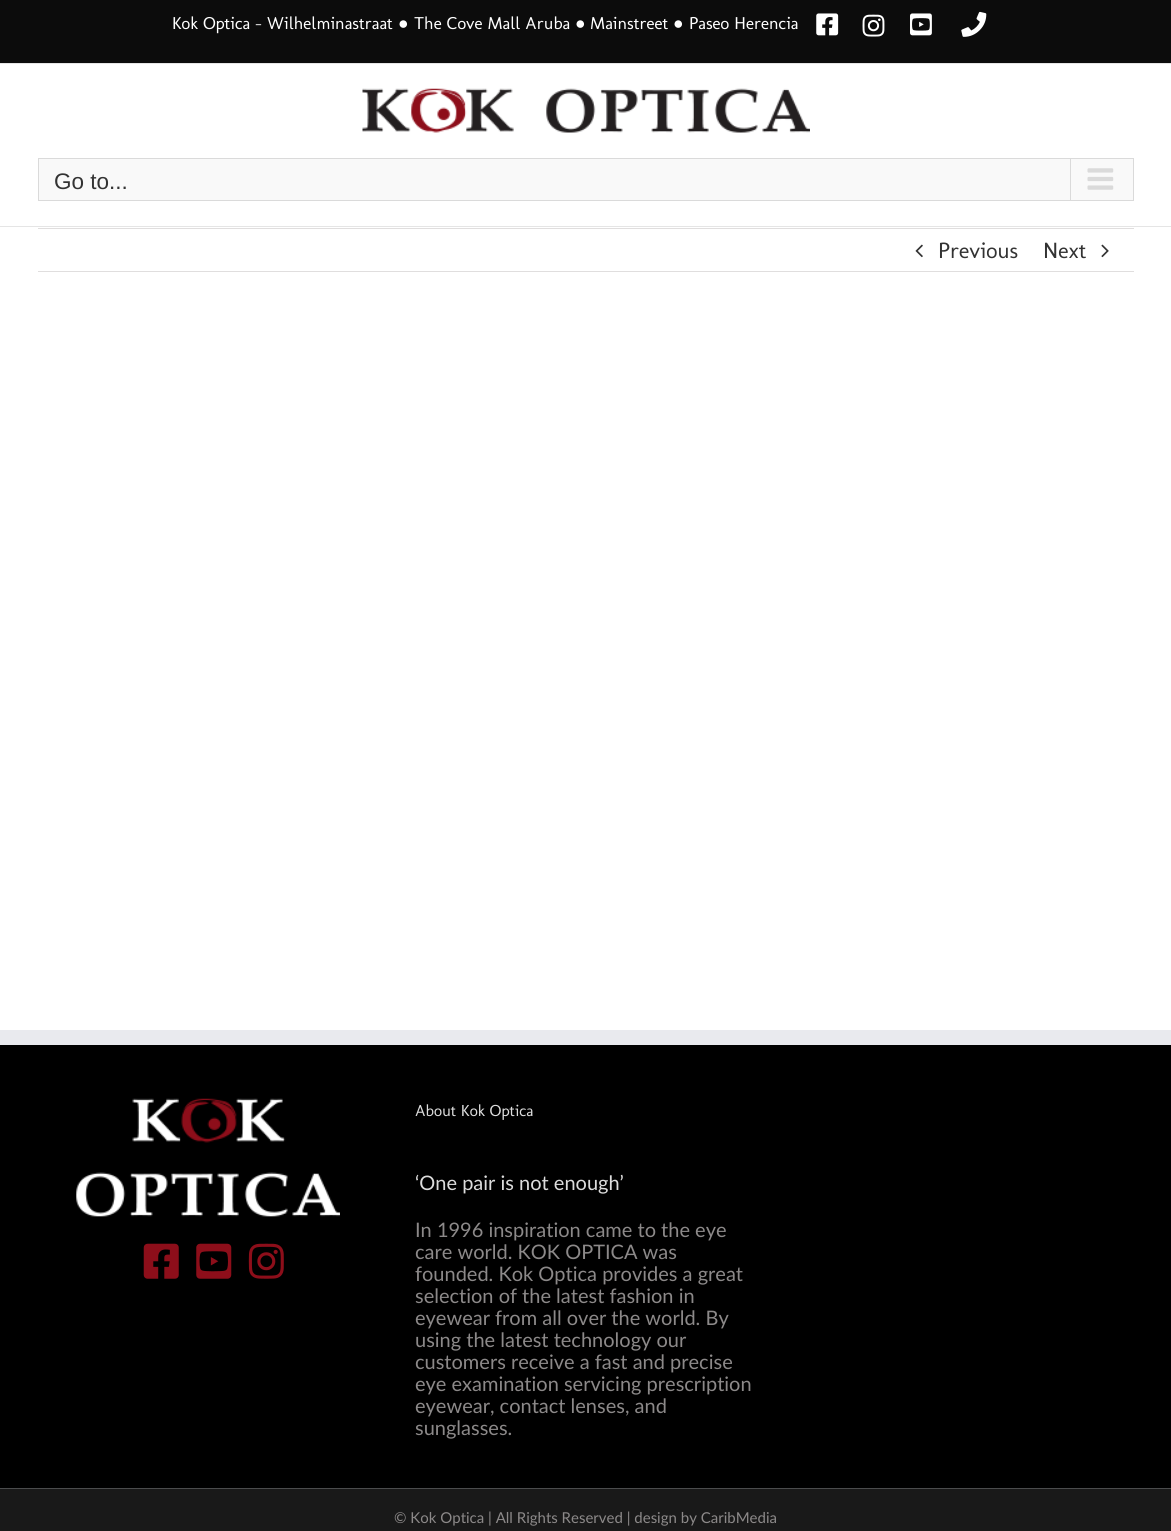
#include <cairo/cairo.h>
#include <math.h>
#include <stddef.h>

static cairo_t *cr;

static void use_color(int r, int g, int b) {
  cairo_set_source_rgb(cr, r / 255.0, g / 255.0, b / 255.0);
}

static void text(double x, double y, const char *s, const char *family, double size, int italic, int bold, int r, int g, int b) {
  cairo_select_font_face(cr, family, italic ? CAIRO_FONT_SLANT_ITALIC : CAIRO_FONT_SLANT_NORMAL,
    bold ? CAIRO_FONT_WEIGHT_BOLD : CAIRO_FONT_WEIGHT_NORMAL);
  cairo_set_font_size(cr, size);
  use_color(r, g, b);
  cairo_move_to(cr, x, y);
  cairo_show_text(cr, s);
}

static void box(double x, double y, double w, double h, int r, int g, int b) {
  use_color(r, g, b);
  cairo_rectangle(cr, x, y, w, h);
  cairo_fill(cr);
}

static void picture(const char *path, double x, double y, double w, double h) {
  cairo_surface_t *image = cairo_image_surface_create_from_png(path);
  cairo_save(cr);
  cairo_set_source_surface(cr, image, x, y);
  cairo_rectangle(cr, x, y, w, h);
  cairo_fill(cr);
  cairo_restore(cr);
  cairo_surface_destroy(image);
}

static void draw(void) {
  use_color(255, 255, 255);
  cairo_paint(cr);
  box(0, 0, 1171, 63, 12, 12, 12);
  box(0, 63, 1171, 1, 229, 229, 229);
  picture("img_01.png", 816, 13, 23, 23);
  picture("img_02.png", 862, 14, 23, 23);
  picture("img_03.png", 910, 13, 22, 23);
  picture("img_04.png", 961, 11, 26, 26);
  box(0, 226, 1171, 1, 229, 229, 229);
  picture("img_05.png", 362, 88, 448, 45);
  use_color(249, 249, 249);
  cairo_rectangle(cr, 38.5, 158.5, 1095, 42);
  cairo_fill_preserve(cr);
  use_color(218, 218, 218);
  cairo_set_line_width(cr, 1);
  cairo_stroke(cr);
  box(1070, 159, 1, 41, 218, 218, 218);
  picture("img_06.png", 1087, 168, 27, 22);
  box(38, 228, 1096, 1, 224, 222, 222);
  box(38, 271, 1096, 1, 224, 222, 222);
  picture("img_07.png", 915, 244, 8, 14);
  picture("img_08.png", 1101, 244, 8, 14);
  box(0, 1045, 1171, 443, 0, 0, 0);
  box(0, 1030, 1171, 15, 233, 234, 238);
  picture("img_09.png", 76, 1098, 264, 119);
  picture("img_10.png", 143, 1243, 36, 36);
  picture("img_11.png", 196, 1243, 36, 36);
  picture("img_12.png", 248, 1243, 36, 36);
  box(0, 1489, 1171, 42, 25, 25, 25);
  box(0, 1488, 1171, 1, 75, 76, 77);
  text(172, 29, "Kok Optica - Wilhelminastraat", "Molengo", 17.5, 0, 0, 255, 255, 255);
  text(398, 29, "●", "Liberation Sans", 17.5, 0, 0, 255, 255, 255);
  text(414, 29, "The Cove Mall Aruba", "Molengo", 17.5, 0, 0, 255, 255, 255);
  text(575, 29, "●", "Liberation Sans", 17.5, 0, 0, 255, 255, 255);
  text(590, 29, "Mainstreet", "Molengo", 17.5, 0, 0, 255, 255, 255);
  text(673, 29, "●", "Liberation Sans", 17.5, 0, 0, 255, 255, 255);
  text(689, 29, "Paseo Herencia", "Molengo", 17.5, 0, 0, 255, 255, 255);
  text(54, 189, "Go to...", "Liberation Sans", 22.5, 0, 0, 51, 51, 51);
  text(938, 258, "Previous", "Molengo", 22.5, 0, 0, 51, 51, 51);
  text(1043, 258, "Next", "Molengo", 22.5, 0, 0, 51, 51, 51);
  text(415, 1116, "About Kok Optica", "Molengo", 16.25, 0, 0, 221, 221, 221);
  text(415, 1190, "‘One pair is not enough’", "Lato", 20, 0, 0, 221, 221, 221);
  text(415, 1237, "In 1996 inspiration came to the eye", "Lato", 20, 0, 0, 140, 137, 137);
  text(415, 1259, "care world. KOK OPTICA was", "Lato", 20, 0, 0, 140, 137, 137);
  text(415, 1281, "founded. Kok Optica provides a great", "Lato", 20, 0, 0, 140, 137, 137);
  text(415, 1303, "selection of the latest fashion in", "Lato", 20, 0, 0, 140, 137, 137);
  text(415, 1325, "eyewear from all over the world. By", "Lato", 20, 0, 0, 140, 137, 137);
  text(415, 1347, "using the latest technology our", "Lato", 20, 0, 0, 140, 137, 137);
  text(415, 1369, "customers receive a fast and precise", "Lato", 20, 0, 0, 140, 137, 137);
  text(415, 1391, "eye examination servicing prescription", "Lato", 20, 0, 0, 140, 137, 137);
  text(415, 1413, "eyewear, contact lenses, and", "Lato", 20, 0, 0, 140, 137, 137);
  text(415, 1435, "sunglasses.", "Lato", 20, 0, 0, 140, 137, 137);
  text(394, 1523, "© Kok Optica | All Rights Reserved | design by CaribMedia", "Lato", 15, 0, 0, 140, 137, 137);
}

int main(void) {
  cairo_surface_t *surface = cairo_image_surface_create(CAIRO_FORMAT_RGB24, 1171, 1531);
  cr = cairo_create(surface);
  cairo_font_options_t *options = cairo_font_options_create();
  cairo_font_options_set_hint_metrics(options, CAIRO_HINT_METRICS_OFF);
  cairo_font_options_set_hint_style(options, CAIRO_HINT_STYLE_NONE);
  cairo_set_font_options(cr, options);
  cairo_set_miter_limit(cr, 4);
  draw();
  cairo_surface_write_to_png(surface, "out.png");
  cairo_font_options_destroy(options);
  cairo_destroy(cr);
  cairo_surface_destroy(surface);
  return 0;
}
